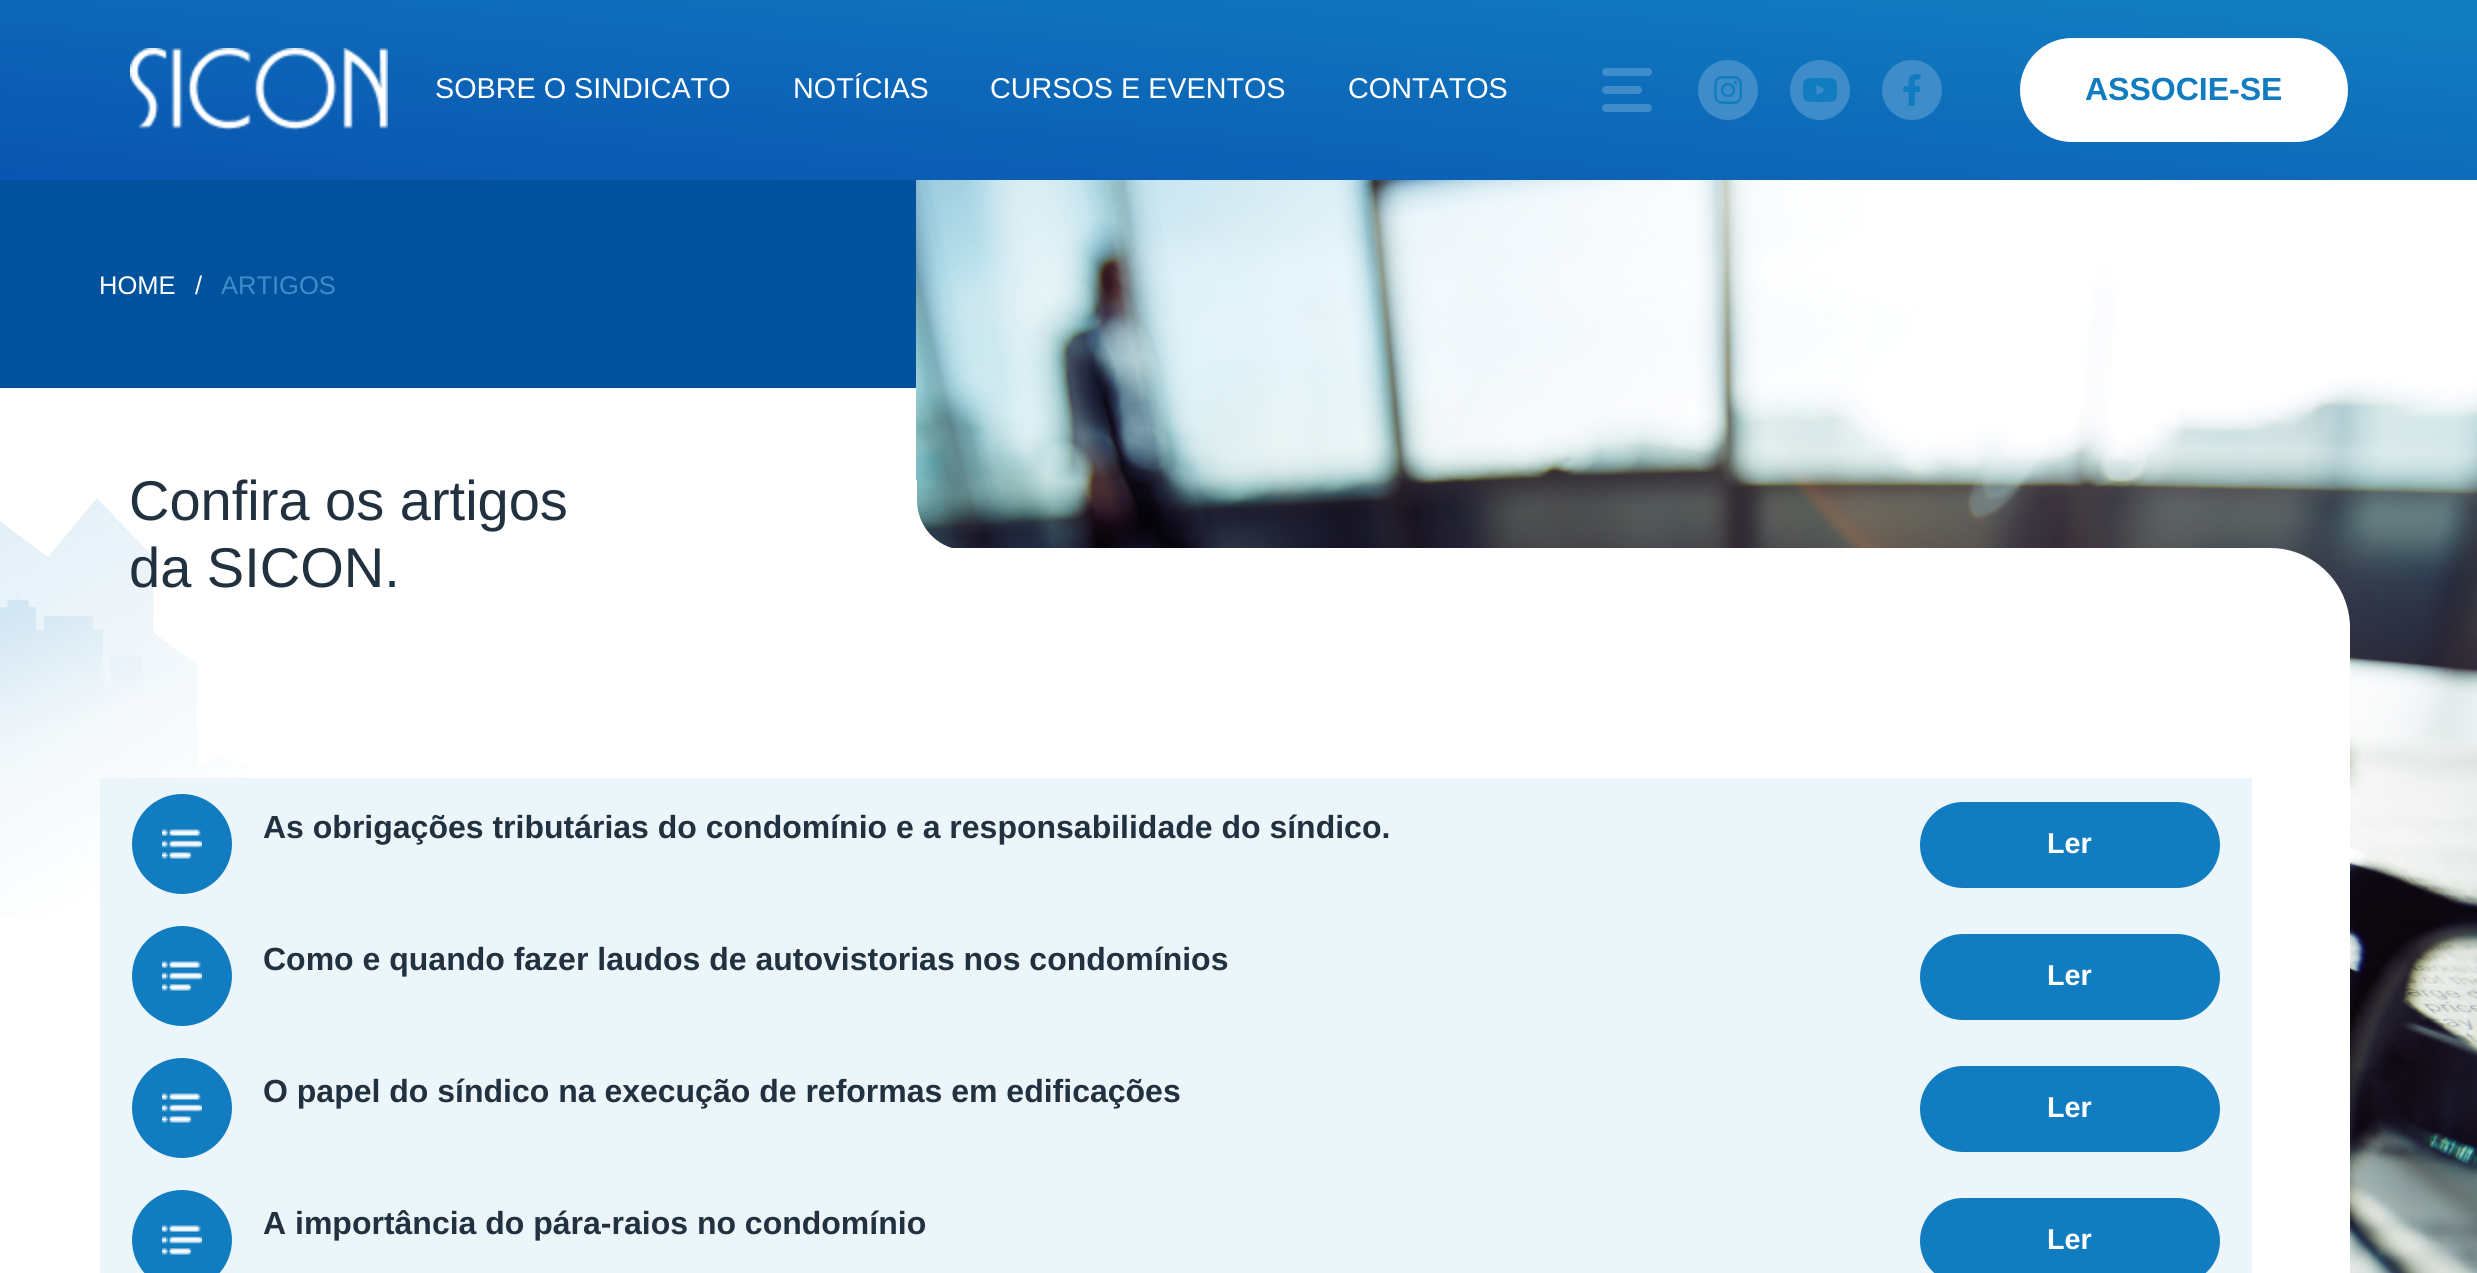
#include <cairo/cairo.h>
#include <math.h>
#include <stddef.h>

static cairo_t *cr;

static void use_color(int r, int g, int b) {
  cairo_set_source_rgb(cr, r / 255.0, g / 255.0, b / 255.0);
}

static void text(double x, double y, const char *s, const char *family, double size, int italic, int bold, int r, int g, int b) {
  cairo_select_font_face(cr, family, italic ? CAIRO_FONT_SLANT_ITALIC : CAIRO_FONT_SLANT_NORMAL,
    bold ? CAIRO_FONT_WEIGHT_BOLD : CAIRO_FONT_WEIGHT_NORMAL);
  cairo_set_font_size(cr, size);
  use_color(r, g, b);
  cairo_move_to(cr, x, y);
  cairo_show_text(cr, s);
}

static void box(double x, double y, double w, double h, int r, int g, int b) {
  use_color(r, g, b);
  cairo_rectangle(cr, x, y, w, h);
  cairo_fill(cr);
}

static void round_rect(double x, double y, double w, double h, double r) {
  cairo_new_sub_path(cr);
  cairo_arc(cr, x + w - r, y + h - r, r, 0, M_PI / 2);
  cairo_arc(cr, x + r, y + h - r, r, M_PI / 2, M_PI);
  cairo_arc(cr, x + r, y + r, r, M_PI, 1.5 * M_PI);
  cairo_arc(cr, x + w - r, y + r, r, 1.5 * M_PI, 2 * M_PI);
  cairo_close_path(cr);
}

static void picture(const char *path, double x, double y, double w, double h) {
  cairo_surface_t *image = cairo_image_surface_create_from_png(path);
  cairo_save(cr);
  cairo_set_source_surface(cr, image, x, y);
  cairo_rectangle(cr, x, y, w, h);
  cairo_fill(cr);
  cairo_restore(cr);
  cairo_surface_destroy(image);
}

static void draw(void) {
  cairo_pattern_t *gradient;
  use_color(255, 255, 255);
  cairo_paint(cr);
  gradient = cairo_pattern_create_linear(1181, 734, 1257, -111);
  cairo_pattern_add_color_stop_rgba(gradient, 0, 0, 0.137, 0.616, 1);
  cairo_pattern_add_color_stop_rgba(gradient, 0.96, 0.067, 0.486, 0.753, 1);
  cairo_set_source(cr, gradient);
  cairo_pattern_destroy(gradient);
  cairo_rectangle(cr, 0, 0, 2477, 180);
  cairo_fill(cr);
  picture("img_01.png", 130, 48, 258, 82);
  use_color(62, 140, 201);
  round_rect(1602, 68, 50, 8, 4);
  cairo_fill(cr);
  round_rect(1602, 86, 40, 8, 4);
  cairo_fill(cr);
  round_rect(1602, 104, 50, 8, 4);
  cairo_fill(cr);
  cairo_arc(cr, 1728, 90, 30, 0, 2 * M_PI);
  cairo_fill(cr);
  picture("img_02.png", 1714, 76, 28, 28);
  cairo_arc(cr, 1820, 90, 30, 0, 2 * M_PI);
  cairo_fill(cr);
  picture("img_03.png", 1803, 78, 34, 24);
  cairo_arc(cr, 1912, 90, 30, 0, 2 * M_PI);
  cairo_fill(cr);
  picture("img_04.png", 1903, 74, 18, 32);
  use_color(255, 255, 255);
  round_rect(2020, 38, 328, 104, 52);
  cairo_fill(cr);
  box(0, 180, 916, 208, 0, 82, 157);
  picture("img_05.png", 916, 180, 1561, 1093);
  use_color(255, 255, 255);
  cairo_new_path(cr);
  cairo_move_to(cr, 867, 500);
  cairo_line_to(cr, 867, 480);
  cairo_line_to(cr, 917, 480);
  cairo_line_to(cr, 917, 500);
  cairo_curve_to(cr, 917, 526, 936, 547, 961, 550);
  cairo_line_to(cr, 917, 550);
  cairo_curve_to(cr, 889, 550, 867, 528, 867, 500);
  cairo_close_path(cr);
  cairo_fill(cr);
  cairo_new_path(cr);
  cairo_move_to(cr, 700, 548);
  cairo_line_to(cr, 2270, 548);
  cairo_curve_to(cr, 2314, 548, 2350, 584, 2350, 628);
  cairo_line_to(cr, 2350, 842);
  cairo_line_to(cr, 700, 842);
  cairo_close_path(cr);
  cairo_fill(cr);
  box(2252, 842, 98, 431, 255, 255, 255);
  picture("img_09.png", 0, 498, 248, 418);
  box(100, 778, 2152, 495, 236, 245, 250);
  use_color(17, 124, 192);
  cairo_arc(cr, 182, 844, 50, 0, 2 * M_PI);
  cairo_fill(cr);
  picture("img_06.png", 162, 829, 40, 30);
  round_rect(1920, 802, 300, 86, 43);
  cairo_fill(cr);
  cairo_arc(cr, 182, 976, 50, 0, 2 * M_PI);
  cairo_fill(cr);
  picture("img_07.png", 162, 961, 40, 30);
  round_rect(1920, 934, 300, 86, 43);
  cairo_fill(cr);
  cairo_arc(cr, 182, 1108, 50, 0, 2 * M_PI);
  cairo_fill(cr);
  picture("img_06.png", 162, 1093, 40, 30);
  round_rect(1920, 1066, 300, 86, 43);
  cairo_fill(cr);
  cairo_arc(cr, 182, 1240, 50, 0, 2 * M_PI);
  cairo_fill(cr);
  picture("img_08.png", 162, 1225, 40, 30);
  round_rect(1920, 1198, 300, 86, 43);
  cairo_fill(cr);
  text(435, 98, "SOBRE O SINDICATO", "Liberation Sans", 28.75, 0, 0, 255, 255, 255);
  text(793, 98, "NOTÍCIAS", "Liberation Sans", 28.75, 0, 0, 255, 255, 255);
  text(990, 98, "CURSOS E EVENTOS", "Liberation Sans", 28.75, 0, 0, 255, 255, 255);
  text(1348, 98, "CONTATOS", "Liberation Sans", 28.75, 0, 0, 255, 255, 255);
  text(2085, 100, "ASSOCIE-SE", "Liberation Sans", 32, 0, 1, 17, 124, 192);
  text(99, 294, "HOME", "Liberation Sans", 25.5, 0, 0, 255, 255, 255);
  text(195, 294, "/", "Liberation Sans", 25.5, 0, 0, 255, 255, 255);
  text(221, 294, "ARTIGOS", "Liberation Sans", 25.5, 0, 0, 62, 140, 201);
  text(129, 520, "Confira os artigos", "Liberation Sans", 56, 0, 0, 34, 49, 63);
  text(129, 587, "da SICON.", "Liberation Sans", 56, 0, 0, 34, 49, 63);
  text(263, 838, "As obrigações tributárias do condomínio e a responsabilidade do síndico.", "Liberation Sans", 32, 0, 1, 34, 49, 63);
  text(2047, 853, "Ler", "Liberation Sans", 28.75, 0, 1, 255, 255, 255);
  text(263, 970, "Como e quando fazer laudos de autovistorias nos condomínios", "Liberation Sans", 32, 0, 1, 34, 49, 63);
  text(2047, 985, "Ler", "Liberation Sans", 28.75, 0, 1, 255, 255, 255);
  text(263, 1102, "O papel do síndico na execução de reformas em edificações", "Liberation Sans", 32, 0, 1, 34, 49, 63);
  text(2047, 1117, "Ler", "Liberation Sans", 28.75, 0, 1, 255, 255, 255);
  text(263, 1234, "A importância do pára-raios no condomínio", "Liberation Sans", 32, 0, 1, 34, 49, 63);
  text(2047, 1249, "Ler", "Liberation Sans", 28.75, 0, 1, 255, 255, 255);
}

int main(void) {
  cairo_surface_t *surface = cairo_image_surface_create(CAIRO_FORMAT_RGB24, 2477, 1273);
  cr = cairo_create(surface);
  cairo_font_options_t *options = cairo_font_options_create();
  cairo_font_options_set_hint_metrics(options, CAIRO_HINT_METRICS_OFF);
  cairo_font_options_set_hint_style(options, CAIRO_HINT_STYLE_NONE);
  cairo_set_font_options(cr, options);
  cairo_set_miter_limit(cr, 4);
  draw();
  cairo_surface_write_to_png(surface, "out.png");
  cairo_font_options_destroy(options);
  cairo_destroy(cr);
  cairo_surface_destroy(surface);
  return 0;
}
